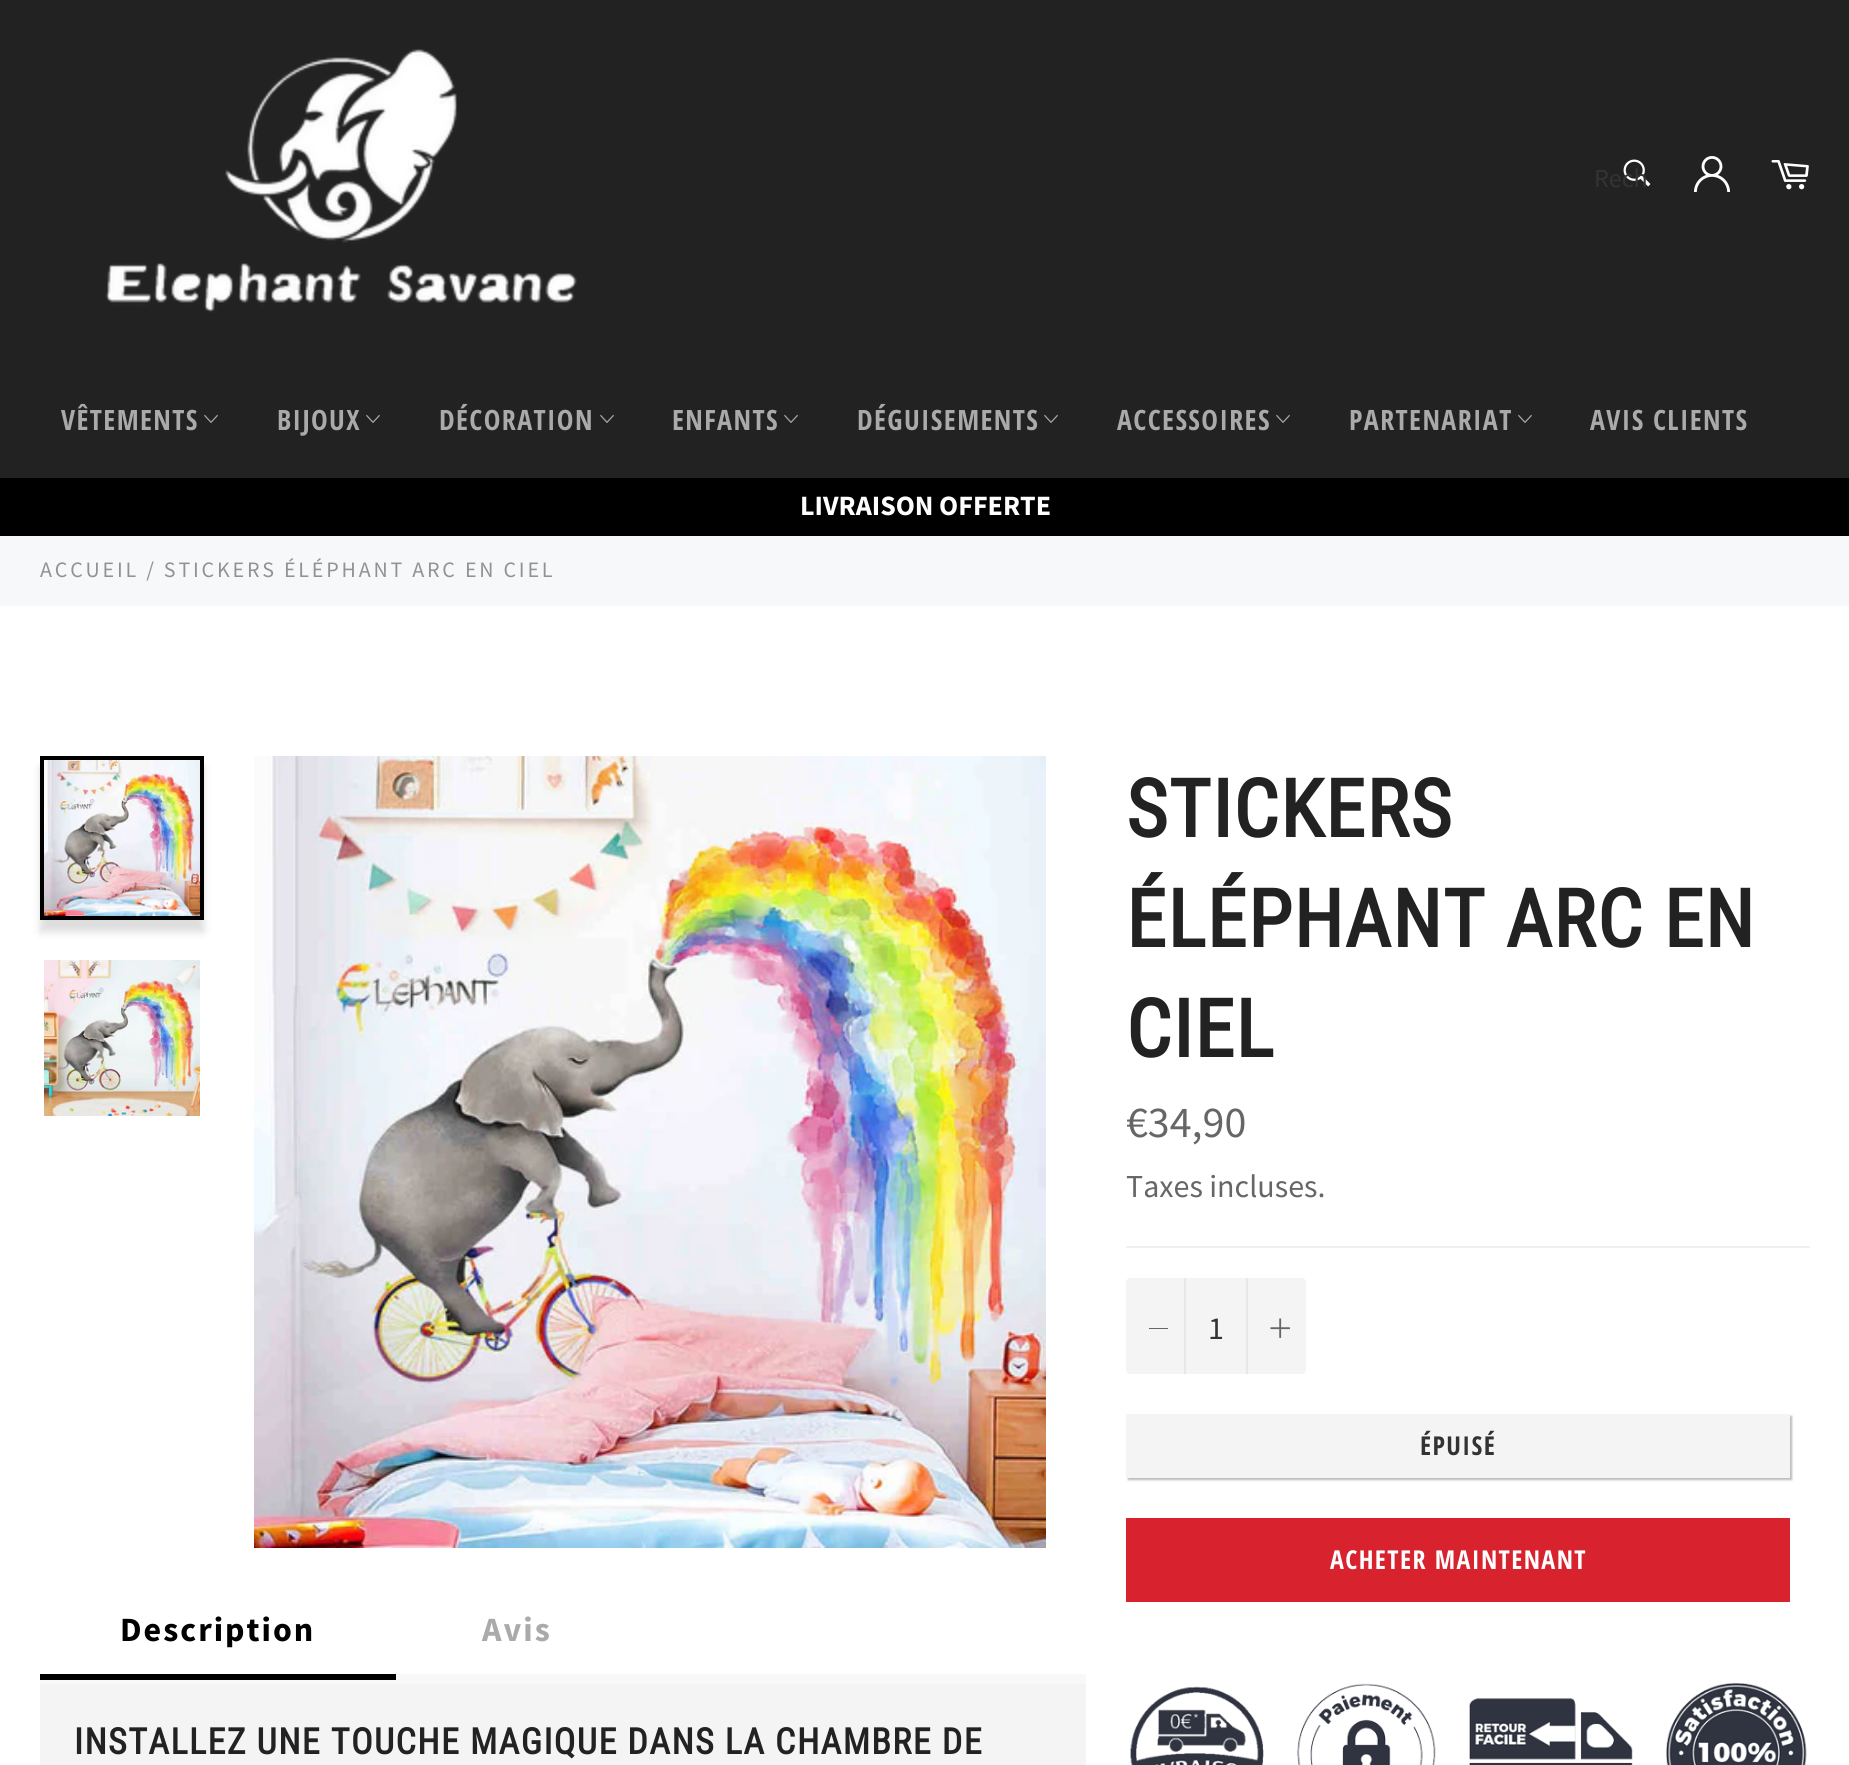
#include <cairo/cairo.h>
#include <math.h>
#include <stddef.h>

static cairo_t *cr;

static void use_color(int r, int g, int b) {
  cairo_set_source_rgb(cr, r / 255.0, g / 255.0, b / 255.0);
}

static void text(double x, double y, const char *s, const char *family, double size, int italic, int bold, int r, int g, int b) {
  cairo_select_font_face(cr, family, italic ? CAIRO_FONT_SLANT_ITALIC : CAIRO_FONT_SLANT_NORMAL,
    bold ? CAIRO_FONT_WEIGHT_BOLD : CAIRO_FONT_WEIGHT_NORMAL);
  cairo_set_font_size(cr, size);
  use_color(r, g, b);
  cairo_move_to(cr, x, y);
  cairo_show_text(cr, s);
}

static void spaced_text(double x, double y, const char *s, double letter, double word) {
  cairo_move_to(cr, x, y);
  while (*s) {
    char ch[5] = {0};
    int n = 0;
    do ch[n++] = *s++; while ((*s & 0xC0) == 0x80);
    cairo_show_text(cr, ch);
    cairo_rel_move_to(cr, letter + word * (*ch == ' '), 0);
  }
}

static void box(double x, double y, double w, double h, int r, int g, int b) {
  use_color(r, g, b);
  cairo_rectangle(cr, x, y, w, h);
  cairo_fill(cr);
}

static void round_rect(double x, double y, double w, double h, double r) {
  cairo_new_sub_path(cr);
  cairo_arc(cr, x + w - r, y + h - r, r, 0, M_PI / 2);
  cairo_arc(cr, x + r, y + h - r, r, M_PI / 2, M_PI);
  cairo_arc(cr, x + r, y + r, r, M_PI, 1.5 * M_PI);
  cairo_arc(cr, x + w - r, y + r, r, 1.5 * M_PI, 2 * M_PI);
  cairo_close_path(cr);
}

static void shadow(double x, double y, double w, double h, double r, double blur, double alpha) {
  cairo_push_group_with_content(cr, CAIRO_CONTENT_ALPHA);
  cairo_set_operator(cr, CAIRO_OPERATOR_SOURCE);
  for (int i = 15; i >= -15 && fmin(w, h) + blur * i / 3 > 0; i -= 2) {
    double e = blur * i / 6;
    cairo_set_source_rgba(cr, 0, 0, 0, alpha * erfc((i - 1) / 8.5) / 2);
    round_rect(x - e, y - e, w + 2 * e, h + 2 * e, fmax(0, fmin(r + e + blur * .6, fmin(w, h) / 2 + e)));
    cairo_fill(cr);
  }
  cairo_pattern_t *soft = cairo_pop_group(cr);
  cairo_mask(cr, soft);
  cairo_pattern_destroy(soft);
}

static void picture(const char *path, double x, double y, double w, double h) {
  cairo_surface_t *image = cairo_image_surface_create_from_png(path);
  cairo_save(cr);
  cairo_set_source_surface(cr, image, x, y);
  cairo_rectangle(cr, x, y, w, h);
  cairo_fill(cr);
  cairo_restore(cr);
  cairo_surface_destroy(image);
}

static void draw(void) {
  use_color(34, 34, 34);
  cairo_paint(cr);
  picture("img_01.png", 105, 49, 472, 264);
  picture("img_02.png", 1623, 159, 28, 28);
  picture("img_03.png", 1694, 156, 36, 36);
  picture("img_04.png", 1771, 160, 38, 30);
  picture("img_05.png", 204, 414, 14, 9);
  picture("img_05.png", 366, 414, 14, 9);
  picture("img_05.png", 600, 414, 14, 9);
  picture("img_05.png", 784, 414, 14, 9);
  picture("img_05.png", 1044, 414, 14, 9);
  picture("img_05.png", 1276, 414, 14, 9);
  picture("img_05.png", 1518, 414, 14, 9);
  box(0, 478, 1849, 58, 0, 0, 0);
  box(0, 606, 1849, 1159, 255, 255, 255);
  box(0, 536, 1849, 70, 247, 248, 249);
  box(1126, 1246, 684, 2, 240, 240, 240);
  use_color(244, 244, 244);
  round_rect(1126, 1278, 180, 96, 4);
  cairo_fill(cr);
  box(1184, 1278, 2, 96, 231, 231, 231);
  box(1149, 1328, 19, 1, 102, 102, 102);
  box(1246, 1278, 2, 96, 231, 231, 231);
  picture("img_06.png", 1270, 1318, 20, 20);
  use_color(0, 0, 0);
  shadow(1128, 1416, 664, 64, 0, 1, 0.27);
  box(1126, 1414, 664, 64, 244, 244, 244);
  box(1126, 1518, 664, 84, 216, 35, 47);
  picture("img_07.png", 1130, 1683, 677, 82);
  use_color(199, 199, 199);
  shadow(40, 768, 164, 164, 0, 4, 0.6);
  cairo_rectangle(cr, 42, 758, 160, 160);
  use_color(0, 0, 0);
  cairo_set_line_width(cr, 4);
  cairo_stroke(cr);
  picture("img_08.png", 44, 760, 156, 156);
  picture("img_09.png", 44, 960, 156, 156);
  picture("img_10.png", 254, 756, 792, 792);
  box(40, 1674, 1046, 10, 247, 248, 249);
  box(40, 1674, 356, 6, 0, 0, 0);
  box(40, 1684, 1046, 81, 244, 244, 244);
  text(1594, 187, "Rech", "Source Sans Pro", 26, 0, 0, 51, 51, 51);
  cairo_select_font_face(cr, "Open Sans Condensed", CAIRO_FONT_SLANT_NORMAL, CAIRO_FONT_WEIGHT_BOLD);
  cairo_set_font_size(cr, 28);
  use_color(170, 170, 170);
  spaced_text(61, 430, "VÊTEMENTS", 1.4, 0);
  spaced_text(277, 430, "BIJOUX", 1.4, 0);
  spaced_text(439, 430, "DÉCORATION", 1.4, 0);
  spaced_text(672, 430, "ENFANTS", 1.4, 0);
  spaced_text(857, 430, "DÉGUISEMENTS", 1.4, 0);
  spaced_text(1117, 430, "ACCESSOIRES", 1.4, 0);
  spaced_text(1349, 430, "PARTENARIAT", 1.4, 0);
  spaced_text(1590, 430, "AVIS CLIENTS", 1.4, 0);
  text(800, 515, "LIVRAISON OFFERTE", "Source Sans Pro", 28, 0, 1, 255, 255, 255);
  cairo_select_font_face(cr, "Source Sans Pro", CAIRO_FONT_SLANT_NORMAL, CAIRO_FONT_WEIGHT_NORMAL);
  cairo_set_font_size(cr, 22);
  use_color(146, 146, 146);
  spaced_text(40, 577, "ACCUEIL / STICKERS ÉLÉPHANT ARC EN CIEL", 2.8, 0);
  cairo_select_font_face(cr, "Roboto Condensed", CAIRO_FONT_SLANT_NORMAL, CAIRO_FONT_WEIGHT_BOLD);
  cairo_set_font_size(cr, 80);
  use_color(34, 34, 34);
  spaced_text(1126, 837, "STICKERS", 1.4, 0);
  spaced_text(1126, 947, "ÉLÉPHANT ARC EN", 1.4, 0);
  spaced_text(1126, 1057, "CIEL", 1.4, 0);
  text(1126, 1137, "€34,90", "Source Sans Pro", 44, 0, 0, 102, 102, 102);
  text(1126, 1197, "Taxes incluses.", "Source Sans Pro", 32, 0, 0, 102, 102, 102);
  text(1208, 1339, "1", "Source Sans Pro", 32, 0, 0, 51, 51, 51);
  cairo_select_font_face(cr, "Open Sans Condensed", CAIRO_FONT_SLANT_NORMAL, CAIRO_FONT_WEIGHT_BOLD);
  cairo_set_font_size(cr, 26);
  spaced_text(1420, 1455, "ÉPUISÉ", 1.4, 0);
  use_color(255, 255, 255);
  spaced_text(1330, 1569, "ACHETER MAINTENANT", 1.4, 0);
  cairo_select_font_face(cr, "Source Sans Pro", CAIRO_FONT_SLANT_NORMAL, CAIRO_FONT_WEIGHT_BOLD);
  cairo_set_font_size(cr, 34);
  use_color(0, 0, 0);
  spaced_text(120, 1641, "Description", 2, 0);
  use_color(170, 170, 170);
  spaced_text(482, 1641, "Avis", 2, 0);
  cairo_select_font_face(cr, "Roboto Condensed", CAIRO_FONT_SLANT_NORMAL, CAIRO_FONT_WEIGHT_BOLD);
  cairo_set_font_size(cr, 36);
  use_color(34, 34, 34);
  spaced_text(74, 1754, "INSTALLEZ UNE TOUCHE MAGIQUE DANS LA CHAMBRE DE", 1.4, 0);
}

int main(void) {
  cairo_surface_t *surface = cairo_image_surface_create(CAIRO_FORMAT_RGB24, 1849, 1765);
  cr = cairo_create(surface);
  cairo_font_options_t *options = cairo_font_options_create();
  cairo_font_options_set_hint_metrics(options, CAIRO_HINT_METRICS_OFF);
  cairo_font_options_set_hint_style(options, CAIRO_HINT_STYLE_NONE);
  cairo_set_font_options(cr, options);
  cairo_set_miter_limit(cr, 4);
  draw();
  cairo_surface_write_to_png(surface, "out.png");
  cairo_font_options_destroy(options);
  cairo_destroy(cr);
  cairo_surface_destroy(surface);
  return 0;
}
